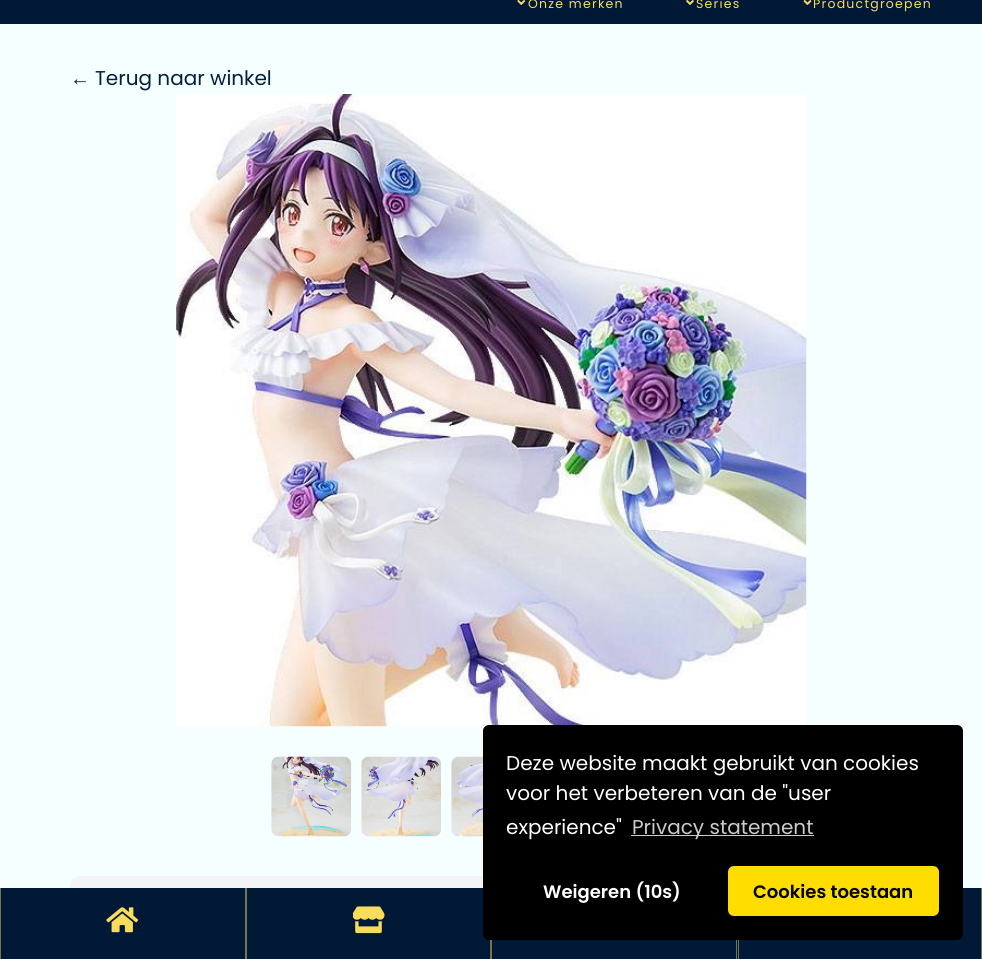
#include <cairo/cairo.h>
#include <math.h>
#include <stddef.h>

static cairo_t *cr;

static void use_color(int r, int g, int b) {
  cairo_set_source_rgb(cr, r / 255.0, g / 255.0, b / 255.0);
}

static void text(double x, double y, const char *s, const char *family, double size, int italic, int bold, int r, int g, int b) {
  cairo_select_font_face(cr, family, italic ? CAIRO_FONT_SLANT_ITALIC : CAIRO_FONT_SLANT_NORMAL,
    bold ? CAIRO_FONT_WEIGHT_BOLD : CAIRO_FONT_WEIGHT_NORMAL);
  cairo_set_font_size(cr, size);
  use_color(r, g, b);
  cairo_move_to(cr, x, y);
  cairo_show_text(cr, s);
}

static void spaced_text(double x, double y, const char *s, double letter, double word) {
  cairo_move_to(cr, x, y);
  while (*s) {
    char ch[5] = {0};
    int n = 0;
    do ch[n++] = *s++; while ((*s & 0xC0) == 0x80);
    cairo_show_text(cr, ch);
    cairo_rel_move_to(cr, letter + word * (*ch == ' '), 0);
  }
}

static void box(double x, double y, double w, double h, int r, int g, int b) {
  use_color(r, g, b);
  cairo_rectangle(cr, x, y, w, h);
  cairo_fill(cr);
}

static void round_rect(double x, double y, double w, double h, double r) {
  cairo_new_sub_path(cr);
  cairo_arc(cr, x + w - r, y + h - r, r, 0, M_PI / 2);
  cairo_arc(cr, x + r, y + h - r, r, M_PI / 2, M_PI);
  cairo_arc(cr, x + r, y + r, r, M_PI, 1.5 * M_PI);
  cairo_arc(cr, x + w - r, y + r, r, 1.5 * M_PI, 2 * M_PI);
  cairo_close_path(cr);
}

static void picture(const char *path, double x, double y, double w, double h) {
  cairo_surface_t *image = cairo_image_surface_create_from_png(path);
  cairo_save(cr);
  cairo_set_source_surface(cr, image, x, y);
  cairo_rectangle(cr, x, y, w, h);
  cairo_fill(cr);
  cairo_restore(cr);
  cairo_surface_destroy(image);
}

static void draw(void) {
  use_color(1, 25, 54);
  cairo_paint(cr);
  picture("img_01.png", 517, 0, 9, 5);
  picture("img_02.png", 686, 0, 8, 5);
  picture("img_03.png", 803, 0, 9, 5);
  box(0, 24, 982, 864, 245, 255, 255);
  picture("img_04.png", 176, 94, 631, 633);
  picture("img_05.png", 271, 756, 81, 81);
  picture("img_06.png", 361, 756, 81, 81);
  picture("img_07.png", 451, 756, 32, 81);
  use_color(243, 244, 246);
  cairo_new_path(cr);
  cairo_move_to(cr, 80, 876);
  cairo_line_to(cr, 903, 876);
  cairo_curve_to(cr, 908.5, 876, 913, 880.5, 913, 886);
  cairo_line_to(cr, 913, 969);
  cairo_line_to(cr, 70, 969);
  cairo_line_to(cr, 70, 886);
  cairo_curve_to(cr, 70, 880.5, 74.5, 876, 80, 876);
  cairo_close_path(cr);
  cairo_fill(cr);
  box(70, 888, 843, 71, 1, 25, 54);
  use_color(0, 0, 0);
  round_rect(483, 725, 480, 215, 6);
  cairo_fill(cr);
  box(631, 835, 183, 1, 204, 204, 204);
  use_color(255, 221, 0);
  round_rect(728, 866, 211, 50, 6);
  cairo_fill(cr);
  box(245, 888, 2, 71, 118, 117, 72);
  box(0, 888, 1, 71, 118, 117, 72);
  picture("img_08.png", 106, 907, 33, 26);
  box(490, 940, 2, 19, 118, 117, 72);
  picture("img_09.png", 353, 906, 32, 28);
  box(736, 940, 1, 19, 118, 117, 72);
  box(981, 888, 1, 71, 118, 117, 72);
  box(738, 940, 1, 19, 118, 117, 72);
  cairo_select_font_face(cr, "Poppins", CAIRO_FONT_SLANT_NORMAL, CAIRO_FONT_WEIGHT_NORMAL);
  cairo_set_font_size(cr, 12.5);
  use_color(249, 220, 92);
  spaced_text(528, 8, "Onze merken", 1.25, 0);
  spaced_text(696, 8, "Series", 1.25, 0);
  spaced_text(813, 8, "Productgroepen", 1.25, 0);
  text(70, 85, "←", "Liberation Sans", 20, 0, 0, 0, 31, 63);
  text(95, 85, "Terug naar winkel", "Poppins", 20, 0, 0, 0, 31, 63);
  text(506, 770, "Deze website maakt gebruikt van cookies", "Poppins", 20, 0, 0, 255, 255, 255);
  text(506, 800, "voor het verbeteren van de \"user", "Poppins", 20, 0, 0, 255, 255, 255);
  text(506, 834, "experience\"", "Poppins", 20, 0, 0, 255, 255, 255);
  text(632, 834, "Privacy statement", "Poppins", 20, 0, 0, 204, 204, 204);
  text(543, 898, "Weigeren (10s)", "Poppins SemiBold", 18, 0, 0, 255, 255, 255);
  text(753, 898, "Cookies toestaan", "Poppins SemiBold", 18, 0, 0, 0, 0, 0);
}

int main(void) {
  cairo_surface_t *surface = cairo_image_surface_create(CAIRO_FORMAT_RGB24, 982, 959);
  cr = cairo_create(surface);
  cairo_font_options_t *options = cairo_font_options_create();
  cairo_font_options_set_hint_metrics(options, CAIRO_HINT_METRICS_OFF);
  cairo_font_options_set_hint_style(options, CAIRO_HINT_STYLE_NONE);
  cairo_set_font_options(cr, options);
  cairo_set_miter_limit(cr, 4);
  draw();
  cairo_surface_write_to_png(surface, "out.png");
  cairo_font_options_destroy(options);
  cairo_destroy(cr);
  cairo_surface_destroy(surface);
  return 0;
}
